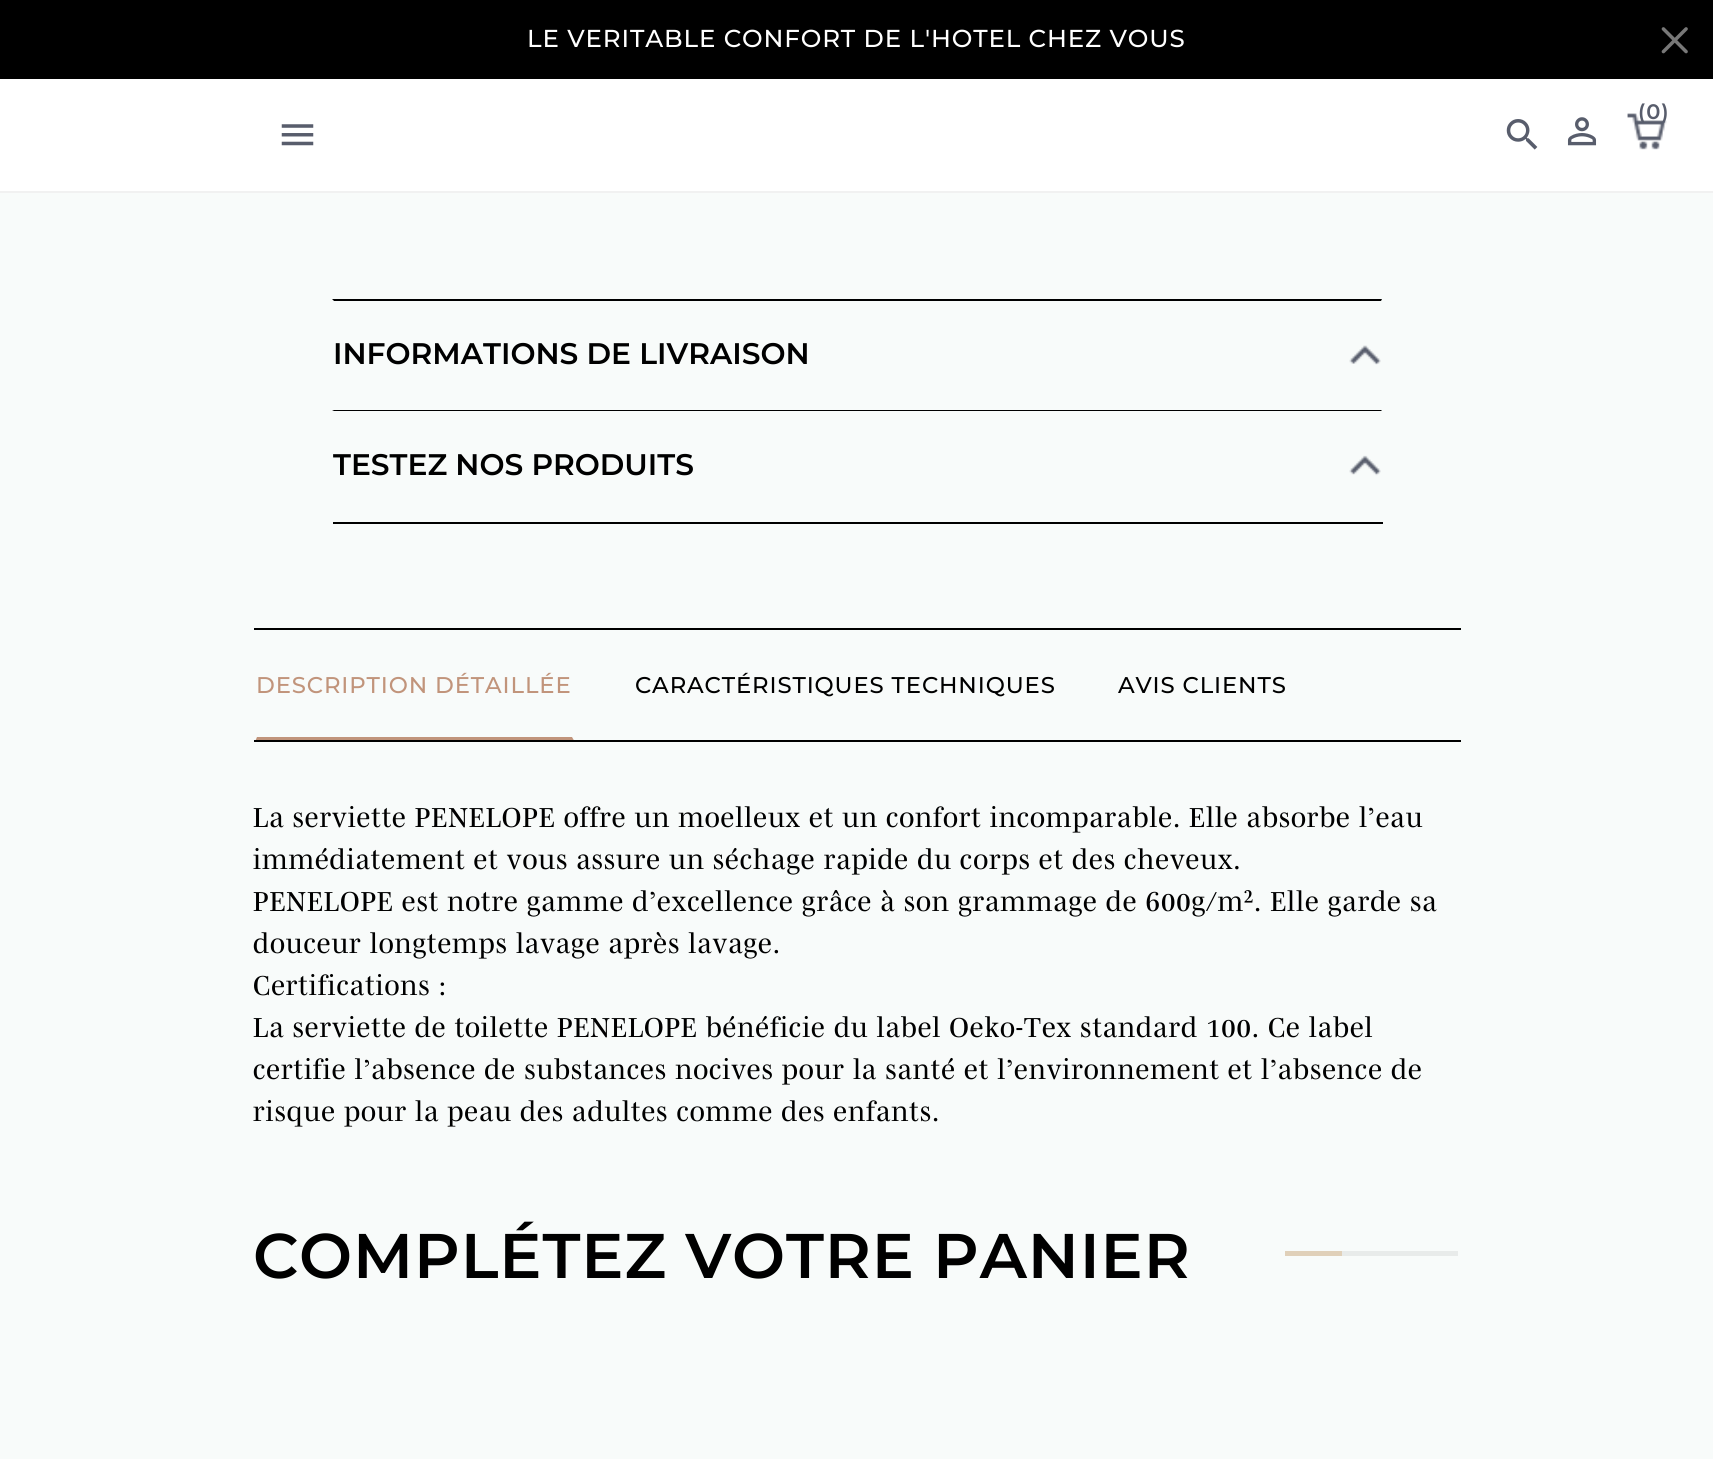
#include <cairo/cairo.h>
#include <math.h>
#include <stddef.h>

static cairo_t *cr;

static void use_color(int r, int g, int b) {
  cairo_set_source_rgb(cr, r / 255.0, g / 255.0, b / 255.0);
}

static void text(double x, double y, const char *s, const char *family, double size, int italic, int bold, int r, int g, int b) {
  cairo_select_font_face(cr, family, italic ? CAIRO_FONT_SLANT_ITALIC : CAIRO_FONT_SLANT_NORMAL,
    bold ? CAIRO_FONT_WEIGHT_BOLD : CAIRO_FONT_WEIGHT_NORMAL);
  cairo_set_font_size(cr, size);
  use_color(r, g, b);
  cairo_move_to(cr, x, y);
  cairo_show_text(cr, s);
}

static void spaced_text(double x, double y, const char *s, double letter, double word) {
  cairo_move_to(cr, x, y);
  while (*s) {
    char ch[5] = {0};
    int n = 0;
    do ch[n++] = *s++; while ((*s & 0xC0) == 0x80);
    cairo_show_text(cr, ch);
    cairo_rel_move_to(cr, letter + word * (*ch == ' '), 0);
  }
}

static void box(double x, double y, double w, double h, int r, int g, int b) {
  use_color(r, g, b);
  cairo_rectangle(cr, x, y, w, h);
  cairo_fill(cr);
}

static void picture(const char *path, double x, double y, double w, double h) {
  cairo_surface_t *image = cairo_image_surface_create_from_png(path);
  cairo_save(cr);
  cairo_set_source_surface(cr, image, x, y);
  cairo_rectangle(cr, x, y, w, h);
  cairo_fill(cr);
  cairo_restore(cr);
  cairo_surface_destroy(image);
}

static void draw(void) {
  use_color(248, 251, 250);
  cairo_paint(cr);
  box(0, 0, 1713, 79, 0, 0, 0);
  picture("img_01.png", 1661, 27, 27, 27);
  box(0, 79, 1713, 112, 255, 255, 255);
  box(0, 191, 1713, 2, 241, 241, 241);
  picture("img_02.png", 281, 124, 33, 22);
  picture("img_03.png", 1627, 113, 40, 37);
  picture("img_04.png", 1567, 117, 30, 29);
  picture("img_05.png", 1506, 119, 32, 31);
  box(333, 522, 1050, 2, 0, 0, 0);
  cairo_new_path(cr);
  cairo_move_to(cr, 332, 299);
  cairo_line_to(cr, 1382, 299);
  cairo_line_to(cr, 1381, 301);
  cairo_line_to(cr, 334, 301);
  cairo_close_path(cr);
  cairo_fill(cr);
  picture("img_06.png", 1349, 345, 32, 20);
  cairo_new_path(cr);
  cairo_move_to(cr, 332, 410);
  cairo_line_to(cr, 1382, 410);
  cairo_line_to(cr, 1381, 411);
  cairo_line_to(cr, 334, 411);
  cairo_close_path(cr);
  cairo_fill(cr);
  picture("img_07.png", 1349, 455, 32, 21);
  box(254, 628, 1207, 2, 0, 0, 0);
  box(254, 740, 1207, 2, 0, 0, 0);
  cairo_save(cr);
  cairo_rectangle(cr, 254, 630, 1207, 110);
  cairo_clip(cr);
  use_color(193, 148, 123);
  cairo_new_path(cr);
  cairo_move_to(cr, 576, 744);
  cairo_line_to(cr, 254, 744);
  cairo_line_to(cr, 257, 737);
  cairo_line_to(cr, 572, 737);
  cairo_close_path(cr);
  cairo_fill(cr);
  cairo_restore(cr);
  box(1285, 1251, 57, 5, 224, 208, 185);
  box(1342, 1251, 116, 5, 232, 235, 234);
  cairo_select_font_face(cr, "Montserrat Medium", CAIRO_FONT_SLANT_NORMAL, CAIRO_FONT_WEIGHT_NORMAL);
  cairo_set_font_size(cr, 24.5);
  use_color(255, 255, 255);
  spaced_text(527, 47, "LE VERITABLE CONFORT DE L'HOTEL CHEZ VOUS", 0.88, 0);
  cairo_select_font_face(cr, "Montserrat SemiBold", CAIRO_FONT_SLANT_NORMAL, CAIRO_FONT_WEIGHT_NORMAL);
  cairo_set_font_size(cr, 21);
  use_color(88, 93, 108);
  spaced_text(1638, 119, "(0)", 0.88, 0);
  text(333, 364, "INFORMATIONS DE LIVRAISON", "Montserrat SemiBold", 29.75, 0, 0, 0, 0, 0);
  text(333, 475, "TESTEZ NOS PRODUITS", "Montserrat SemiBold", 29.75, 0, 0, 0, 0, 0);
  cairo_select_font_face(cr, "Montserrat Medium", CAIRO_FONT_SLANT_NORMAL, CAIRO_FONT_WEIGHT_NORMAL);
  cairo_set_font_size(cr, 22.75);
  use_color(193, 148, 123);
  spaced_text(256, 693, "DESCRIPTION DÉTAILLÉE", 0.88, 0);
  use_color(0, 0, 0);
  spaced_text(635, 693, "CARACTÉRISTIQUES TECHNIQUES", 0.88, 0);
  spaced_text(1118, 693, "AVIS CLIENTS", 0.88, 0);
  cairo_select_font_face(cr, "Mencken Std", CAIRO_FONT_SLANT_NORMAL, CAIRO_FONT_WEIGHT_NORMAL);
  cairo_set_font_size(cr, 28);
  spaced_text(253, 827, "La serviette PENELOPE offre un moelleux et un confort incomparable. Elle absorbe l’eau", 0.88, 0);
  spaced_text(253, 869, "immédiatement et vous assure un séchage rapide du corps et des cheveux.", 0.88, 0);
  spaced_text(253, 911, "PENELOPE est notre gamme d’excellence grâce à son grammage de 600g/m². Elle garde sa", 0.88, 0);
  spaced_text(253, 953, "douceur longtemps lavage après lavage.", 0.88, 0);
  spaced_text(253, 995, "Certifications :", 0.88, 0);
  spaced_text(253, 1037, "La serviette de toilette PENELOPE bénéficie du label Oeko-Tex standard 100. Ce label", 0.88, 0);
  spaced_text(253, 1079, "certifie l’absence de substances nocives pour la santé et l’environnement et l’absence de", 0.88, 0);
  spaced_text(253, 1121, "risque pour la peau des adultes comme des enfants.", 0.88, 0);
  cairo_select_font_face(cr, "Montserrat SemiBold", CAIRO_FONT_SLANT_NORMAL, CAIRO_FONT_WEIGHT_NORMAL);
  cairo_set_font_size(cr, 63);
  spaced_text(253, 1278, "COMPLÉTEZ VOTRE PANIER", 0.88, 0);
}

int main(void) {
  cairo_surface_t *surface = cairo_image_surface_create(CAIRO_FORMAT_RGB24, 1713, 1459);
  cr = cairo_create(surface);
  cairo_font_options_t *options = cairo_font_options_create();
  cairo_font_options_set_hint_metrics(options, CAIRO_HINT_METRICS_OFF);
  cairo_font_options_set_hint_style(options, CAIRO_HINT_STYLE_NONE);
  cairo_set_font_options(cr, options);
  cairo_set_miter_limit(cr, 4);
  draw();
  cairo_surface_write_to_png(surface, "out.png");
  cairo_font_options_destroy(options);
  cairo_destroy(cr);
  cairo_surface_destroy(surface);
  return 0;
}
